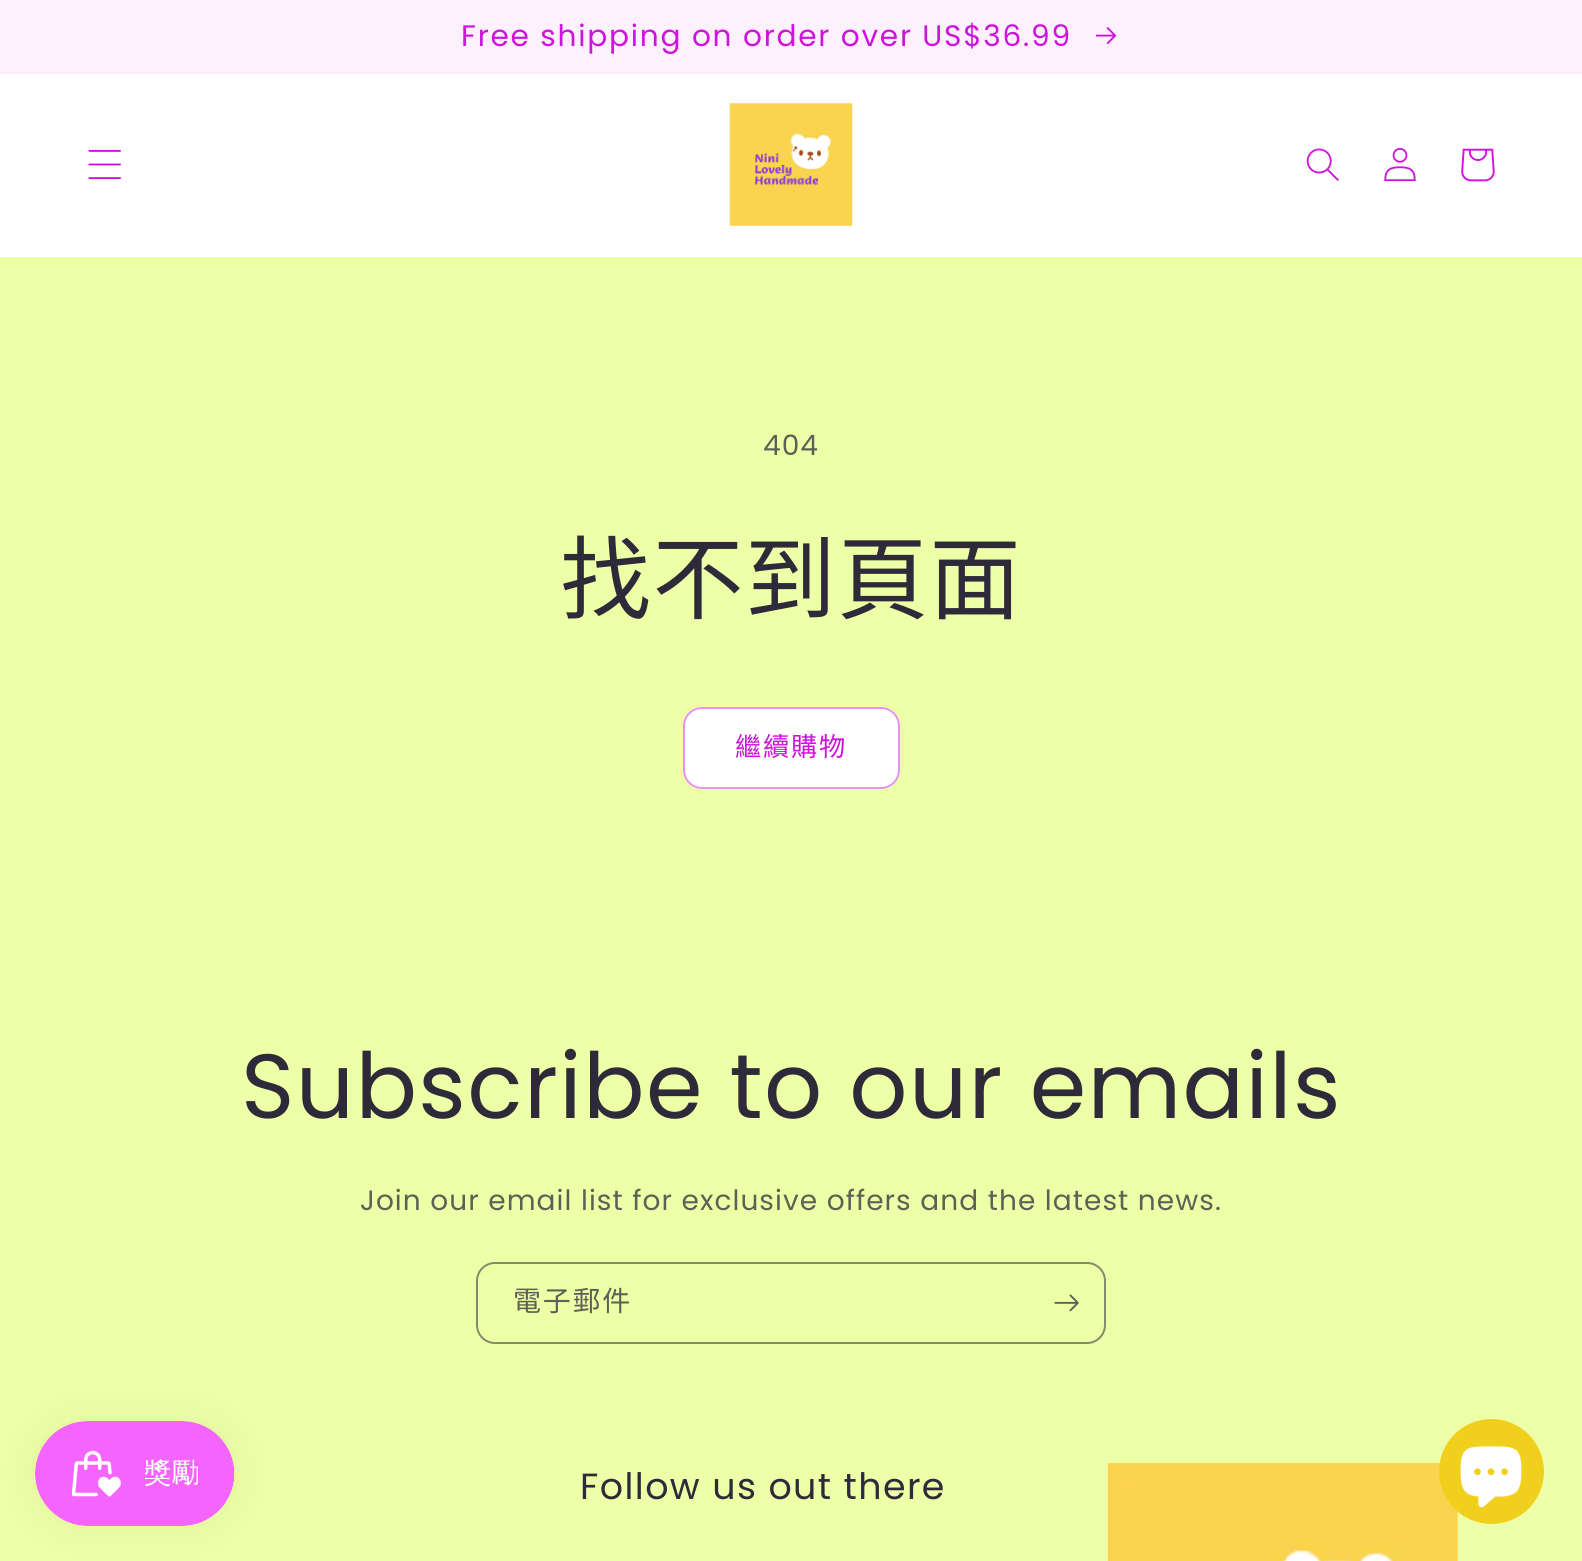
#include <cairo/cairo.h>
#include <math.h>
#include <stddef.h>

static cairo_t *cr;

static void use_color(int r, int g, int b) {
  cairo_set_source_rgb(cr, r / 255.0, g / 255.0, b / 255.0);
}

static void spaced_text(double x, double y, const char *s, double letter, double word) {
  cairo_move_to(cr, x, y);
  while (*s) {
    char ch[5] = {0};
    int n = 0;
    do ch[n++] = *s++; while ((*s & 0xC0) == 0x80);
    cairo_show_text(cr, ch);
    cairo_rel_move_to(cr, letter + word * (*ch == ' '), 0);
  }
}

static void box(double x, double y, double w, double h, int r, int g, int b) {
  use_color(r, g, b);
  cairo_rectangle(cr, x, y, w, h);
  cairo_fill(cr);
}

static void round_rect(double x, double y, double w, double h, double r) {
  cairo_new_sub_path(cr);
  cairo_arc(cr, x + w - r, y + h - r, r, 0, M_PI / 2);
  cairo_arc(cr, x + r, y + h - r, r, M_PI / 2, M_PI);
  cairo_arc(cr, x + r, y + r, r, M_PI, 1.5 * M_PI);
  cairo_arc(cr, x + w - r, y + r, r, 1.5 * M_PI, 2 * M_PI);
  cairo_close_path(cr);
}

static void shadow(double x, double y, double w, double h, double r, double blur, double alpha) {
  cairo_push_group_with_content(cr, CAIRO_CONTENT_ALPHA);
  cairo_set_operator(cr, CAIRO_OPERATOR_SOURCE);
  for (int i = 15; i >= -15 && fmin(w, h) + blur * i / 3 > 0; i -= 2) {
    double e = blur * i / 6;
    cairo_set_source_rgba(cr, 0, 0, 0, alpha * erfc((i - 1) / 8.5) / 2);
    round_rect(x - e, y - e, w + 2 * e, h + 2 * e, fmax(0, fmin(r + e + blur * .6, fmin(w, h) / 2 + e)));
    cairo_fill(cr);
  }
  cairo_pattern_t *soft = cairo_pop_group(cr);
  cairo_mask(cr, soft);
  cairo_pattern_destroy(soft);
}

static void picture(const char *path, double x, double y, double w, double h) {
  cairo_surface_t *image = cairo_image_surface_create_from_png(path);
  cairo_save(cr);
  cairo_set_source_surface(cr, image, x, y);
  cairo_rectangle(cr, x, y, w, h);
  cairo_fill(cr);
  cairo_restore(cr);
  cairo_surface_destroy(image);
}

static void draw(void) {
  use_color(237, 255, 167);
  cairo_paint(cr);
  box(0, 72, 1582, 2, 251, 236, 252);
  box(0, 0, 1582, 72, 252, 241, 253);
  picture("img_01.png", 1096, 27, 21, 17);
  box(0, 74, 1582, 183, 255, 255, 255);
  picture("img_02.png", 88, 149, 33, 31);
  picture("img_03.png", 729, 103, 124, 123);
  picture("img_04.png", 1306, 148, 33, 33);
  picture("img_05.png", 1384, 147, 32, 35);
  picture("img_06.png", 1461, 148, 34, 34);
  round_rect(683, 707, 217, 82, 19);
  cairo_fill(cr);
  round_rect(684, 708, 215, 80, 18);
  cairo_stroke(cr);
  round_rect(684, 708, 215, 80, 18);
  cairo_set_source_rgba(cr, 0.804, 0.075, 0.863, 0.45);
  cairo_stroke(cr);
  round_rect(477, 1263, 628, 80, 18);
  use_color(132, 138, 107);
  cairo_stroke(cr);
  picture("img_07.png", 1054, 1294, 25, 18);
  use_color(0, 0, 0);
  shadow(35, 1421, 200, 105, 52.5, 22, 0.05);
  picture("img_08.png", 35, 1421, 200, 105);
  picture("img_09.png", 1107, 1463, 351, 98);
  use_color(241, 208, 29);
  cairo_arc(cr, 1491.5, 1471.5, 52.5, 0, 2 * M_PI);
  cairo_fill(cr);
  picture("img_10.png", 1460, 1446, 62, 62);
  cairo_select_font_face(cr, "Poppins", CAIRO_FONT_SLANT_NORMAL, CAIRO_FONT_WEIGHT_NORMAL);
  cairo_set_font_size(cr, 29.6);
  use_color(205, 19, 220);
  spaced_text(461, 46, "Free shipping on order over US$36.99", 1.75, 0);
  cairo_set_font_size(cr, 28);
  use_color(94, 95, 85);
  spaced_text(763, 455, "404", 1.05, 0);
  cairo_select_font_face(cr, "Noto Sans CJK TC", CAIRO_FONT_SLANT_NORMAL, CAIRO_FONT_WEIGHT_NORMAL);
  cairo_set_font_size(cr, 91);
  use_color(46, 42, 57);
  spaced_text(560, 612, "找不到頁面", 1.4, 0);
  cairo_set_font_size(cr, 26.25);
  use_color(205, 19, 220);
  spaced_text(735, 756, "繼續購物", 1.75, 0);
  cairo_select_font_face(cr, "Poppins", CAIRO_FONT_SLANT_NORMAL, CAIRO_FONT_WEIGHT_NORMAL);
  cairo_set_font_size(cr, 91);
  use_color(46, 42, 57);
  spaced_text(241, 1118, "Subscribe to our emails", 1.4, 0);
  cairo_set_font_size(cr, 28);
  use_color(94, 95, 85);
  spaced_text(360, 1210, "Join our email list for exclusive offers and the latest news.", 1.05, 0);
  cairo_select_font_face(cr, "Noto Sans CJK TC", CAIRO_FONT_SLANT_NORMAL, CAIRO_FONT_WEIGHT_NORMAL);
  spaced_text(513, 1311, "電子郵件", 1.75, 0);
  cairo_select_font_face(cr, "Poppins", CAIRO_FONT_SLANT_NORMAL, CAIRO_FONT_WEIGHT_NORMAL);
  cairo_set_font_size(cr, 36.4);
  use_color(46, 42, 57);
  spaced_text(580, 1499, "Follow us out there", 1.4, 0);
}

int main(void) {
  cairo_surface_t *surface = cairo_image_surface_create(CAIRO_FORMAT_RGB24, 1582, 1561);
  cr = cairo_create(surface);
  cairo_font_options_t *options = cairo_font_options_create();
  cairo_font_options_set_hint_metrics(options, CAIRO_HINT_METRICS_OFF);
  cairo_font_options_set_hint_style(options, CAIRO_HINT_STYLE_NONE);
  cairo_set_font_options(cr, options);
  cairo_set_miter_limit(cr, 4);
  draw();
  cairo_surface_write_to_png(surface, "out.png");
  cairo_font_options_destroy(options);
  cairo_destroy(cr);
  cairo_surface_destroy(surface);
  return 0;
}
